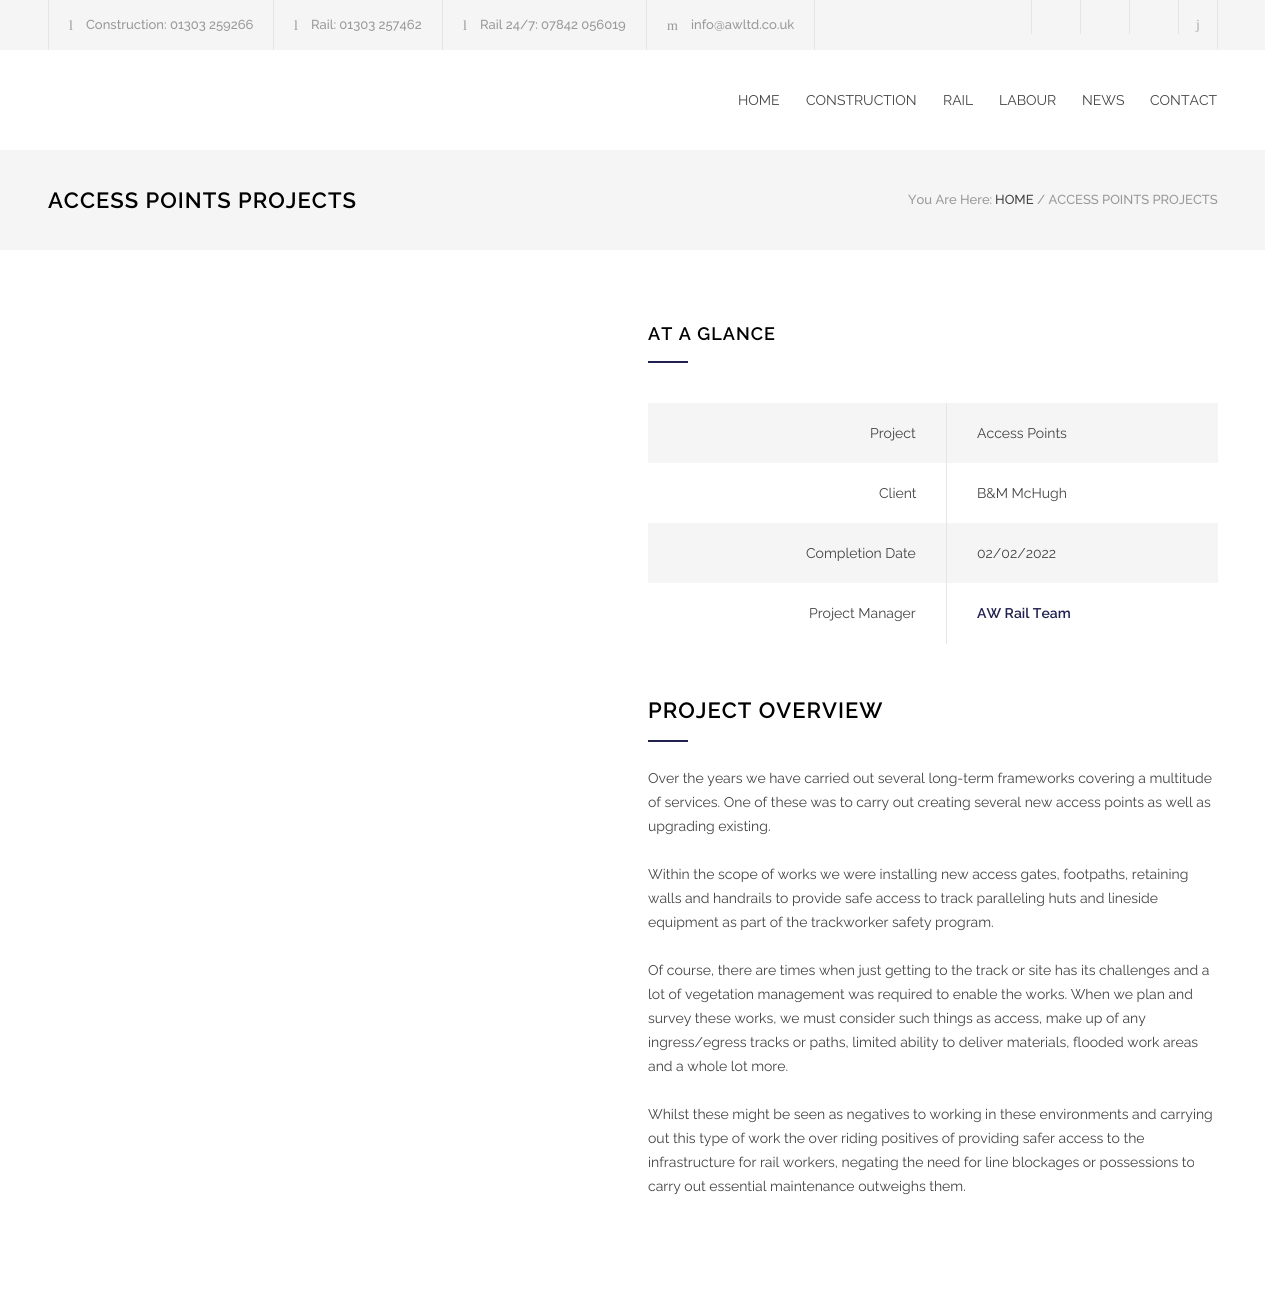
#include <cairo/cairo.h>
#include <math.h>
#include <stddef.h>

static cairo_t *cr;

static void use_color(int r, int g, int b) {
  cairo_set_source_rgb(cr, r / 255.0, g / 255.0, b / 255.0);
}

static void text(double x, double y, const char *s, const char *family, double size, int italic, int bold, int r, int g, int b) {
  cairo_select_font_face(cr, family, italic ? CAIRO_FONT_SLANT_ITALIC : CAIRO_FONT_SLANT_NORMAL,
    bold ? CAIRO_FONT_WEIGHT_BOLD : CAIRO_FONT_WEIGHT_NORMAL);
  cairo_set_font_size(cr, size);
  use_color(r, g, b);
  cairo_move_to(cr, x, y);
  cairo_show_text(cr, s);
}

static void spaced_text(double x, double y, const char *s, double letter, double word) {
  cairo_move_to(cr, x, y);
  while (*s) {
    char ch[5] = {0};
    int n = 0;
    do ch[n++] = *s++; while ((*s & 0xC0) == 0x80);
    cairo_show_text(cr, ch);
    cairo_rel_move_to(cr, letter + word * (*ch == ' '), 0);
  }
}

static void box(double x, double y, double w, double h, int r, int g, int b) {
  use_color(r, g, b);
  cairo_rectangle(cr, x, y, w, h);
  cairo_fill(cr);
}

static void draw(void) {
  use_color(255, 255, 255);
  cairo_paint(cr);
  box(0, 0, 1265, 50, 245, 245, 245);
  box(273, 0, 1, 50, 226, 230, 231);
  box(48, 0, 1, 50, 226, 230, 231);
  box(442, 0, 1, 50, 226, 230, 231);
  box(646, 0, 1, 50, 226, 230, 231);
  box(814, 0, 1, 50, 226, 230, 231);
  box(1080, 0, 1, 34, 226, 230, 231);
  box(1031, 0, 1, 34, 226, 230, 231);
  box(1129, 0, 1, 34, 226, 230, 231);
  box(1178, 0, 1, 34, 226, 230, 231);
  box(1217, 0, 1, 49, 226, 230, 231);
  box(0, 150, 1265, 100, 245, 245, 245);
  box(648, 361, 40, 2, 32, 33, 79);
  box(648, 403, 570, 60, 245, 245, 245);
  box(648, 523, 570, 60, 245, 245, 245);
  box(946, 403, 1, 241, 226, 230, 231);
  box(648, 740, 40, 2, 32, 33, 79);
  text(69, 30, "l", "Liberation Serif", 14, 0, 0, 153, 153, 153);
  text(86, 29, "Construction: 01303 259266", "Raleway Medium", 13, 0, 0, 153, 153, 153);
  text(294, 30, "l", "Liberation Serif", 14, 0, 0, 153, 153, 153);
  text(311, 29, "Rail: 01303 257462", "Raleway Medium", 13, 0, 0, 153, 153, 153);
  text(463, 30, "l", "Liberation Serif", 14, 0, 0, 153, 153, 153);
  text(480, 29, "Rail 24/7: 07842 056019", "Raleway Medium", 13, 0, 0, 153, 153, 153);
  text(667, 30, "m", "Liberation Serif", 14, 0, 0, 153, 153, 153);
  text(691, 29, "info@awltd.co.uk", "Raleway Medium", 13, 0, 0, 153, 153, 153);
  text(1196, 29, "j", "Liberation Serif", 14, 0, 0, 170, 170, 170);
  text(738, 105, "HOME", "Raleway", 14, 0, 0, 68, 68, 68);
  text(806, 105, "CONSTRUCTION", "Raleway", 14, 0, 0, 68, 68, 68);
  text(943, 105, "RAIL", "Raleway", 14, 0, 0, 68, 68, 68);
  text(999, 105, "LABOUR", "Raleway", 14, 0, 0, 68, 68, 68);
  text(1082, 105, "NEWS", "Raleway", 14, 0, 0, 68, 68, 68);
  text(1150, 105, "CONTACT", "Raleway", 14, 0, 0, 68, 68, 68);
  cairo_select_font_face(cr, "Raleway SemiBold", CAIRO_FONT_SLANT_NORMAL, CAIRO_FONT_WEIGHT_NORMAL);
  cairo_set_font_size(cr, 22);
  use_color(0, 0, 0);
  spaced_text(48, 208, "ACCESS POINTS PROJECTS", 1, 0);
  text(908, 204, "You Are Here:", "Raleway Medium", 13, 0, 0, 153, 153, 153);
  text(995, 204, "HOME", "Raleway Medium", 13, 0, 0, 68, 68, 68);
  text(1037, 204, "/ ACCESS POINTS PROJECTS", "Raleway Medium", 13, 0, 0, 153, 153, 153);
  cairo_select_font_face(cr, "Raleway SemiBold", CAIRO_FONT_SLANT_NORMAL, CAIRO_FONT_WEIGHT_NORMAL);
  cairo_set_font_size(cr, 18);
  use_color(0, 0, 0);
  spaced_text(648, 340, "AT A GLANCE", 1, 0);
  text(870, 438, "Project", "Raleway", 14, 0, 0, 68, 68, 68);
  text(977, 438, "Access Points", "Raleway", 14, 0, 0, 68, 68, 68);
  text(879, 498, "Client", "Raleway", 14, 0, 0, 68, 68, 68);
  text(977, 498, "B&M McHugh", "Raleway", 14, 0, 0, 68, 68, 68);
  text(806, 558, "Completion Date", "Raleway", 14, 0, 0, 68, 68, 68);
  text(977, 558, "02/02/2022", "Raleway", 14, 0, 0, 68, 68, 68);
  text(809, 618, "Project Manager", "Raleway", 14, 0, 0, 68, 68, 68);
  text(977, 618, "AW Rail Team", "Raleway SemiBold", 14, 0, 0, 32, 33, 79);
  cairo_set_font_size(cr, 22);
  use_color(0, 0, 0);
  spaced_text(648, 718, "PROJECT OVERVIEW", 1, 0);
  text(648, 783, "Over the years we have carried out several long-term frameworks covering a multitude", "Raleway", 14, 0, 0, 68, 68, 68);
  text(648, 807, "of services. One of these was to carry out creating several new access points as well as", "Raleway", 14, 0, 0, 68, 68, 68);
  text(648, 831, "upgrading existing.", "Raleway", 14, 0, 0, 68, 68, 68);
  text(648, 879, "Within the scope of works we were installing new access gates, footpaths, retaining", "Raleway", 14, 0, 0, 68, 68, 68);
  text(648, 903, "walls and handrails to provide safe access to track paralleling huts and lineside", "Raleway", 14, 0, 0, 68, 68, 68);
  text(648, 927, "equipment as part of the trackworker safety program.", "Raleway", 14, 0, 0, 68, 68, 68);
  text(648, 975, "Of course, there are times when just getting to the track or site has its challenges and a", "Raleway", 14, 0, 0, 68, 68, 68);
  text(648, 999, "lot of vegetation management was required to enable the works. When we plan and", "Raleway", 14, 0, 0, 68, 68, 68);
  text(648, 1023, "survey these works, we must consider such things as access, make up of any", "Raleway", 14, 0, 0, 68, 68, 68);
  text(648, 1047, "ingress/egress tracks or paths, limited ability to deliver materials, flooded work areas", "Raleway", 14, 0, 0, 68, 68, 68);
  text(648, 1071, "and a whole lot more.", "Raleway", 14, 0, 0, 68, 68, 68);
  text(648, 1119, "Whilst these might be seen as negatives to working in these environments and carrying", "Raleway", 14, 0, 0, 68, 68, 68);
  text(648, 1143, "out this type of work the over riding positives of providing safer access to the", "Raleway", 14, 0, 0, 68, 68, 68);
  text(648, 1167, "infrastructure for rail workers, negating the need for line blockages or possessions to", "Raleway", 14, 0, 0, 68, 68, 68);
  text(648, 1191, "carry out essential maintenance outweighs them.", "Raleway", 14, 0, 0, 68, 68, 68);
}

int main(void) {
  cairo_surface_t *surface = cairo_image_surface_create(CAIRO_FORMAT_RGB24, 1265, 1303);
  cr = cairo_create(surface);
  cairo_font_options_t *options = cairo_font_options_create();
  cairo_font_options_set_hint_metrics(options, CAIRO_HINT_METRICS_OFF);
  cairo_font_options_set_hint_style(options, CAIRO_HINT_STYLE_NONE);
  cairo_set_font_options(cr, options);
  cairo_set_miter_limit(cr, 4);
  draw();
  cairo_surface_write_to_png(surface, "out.png");
  cairo_font_options_destroy(options);
  cairo_destroy(cr);
  cairo_surface_destroy(surface);
  return 0;
}
